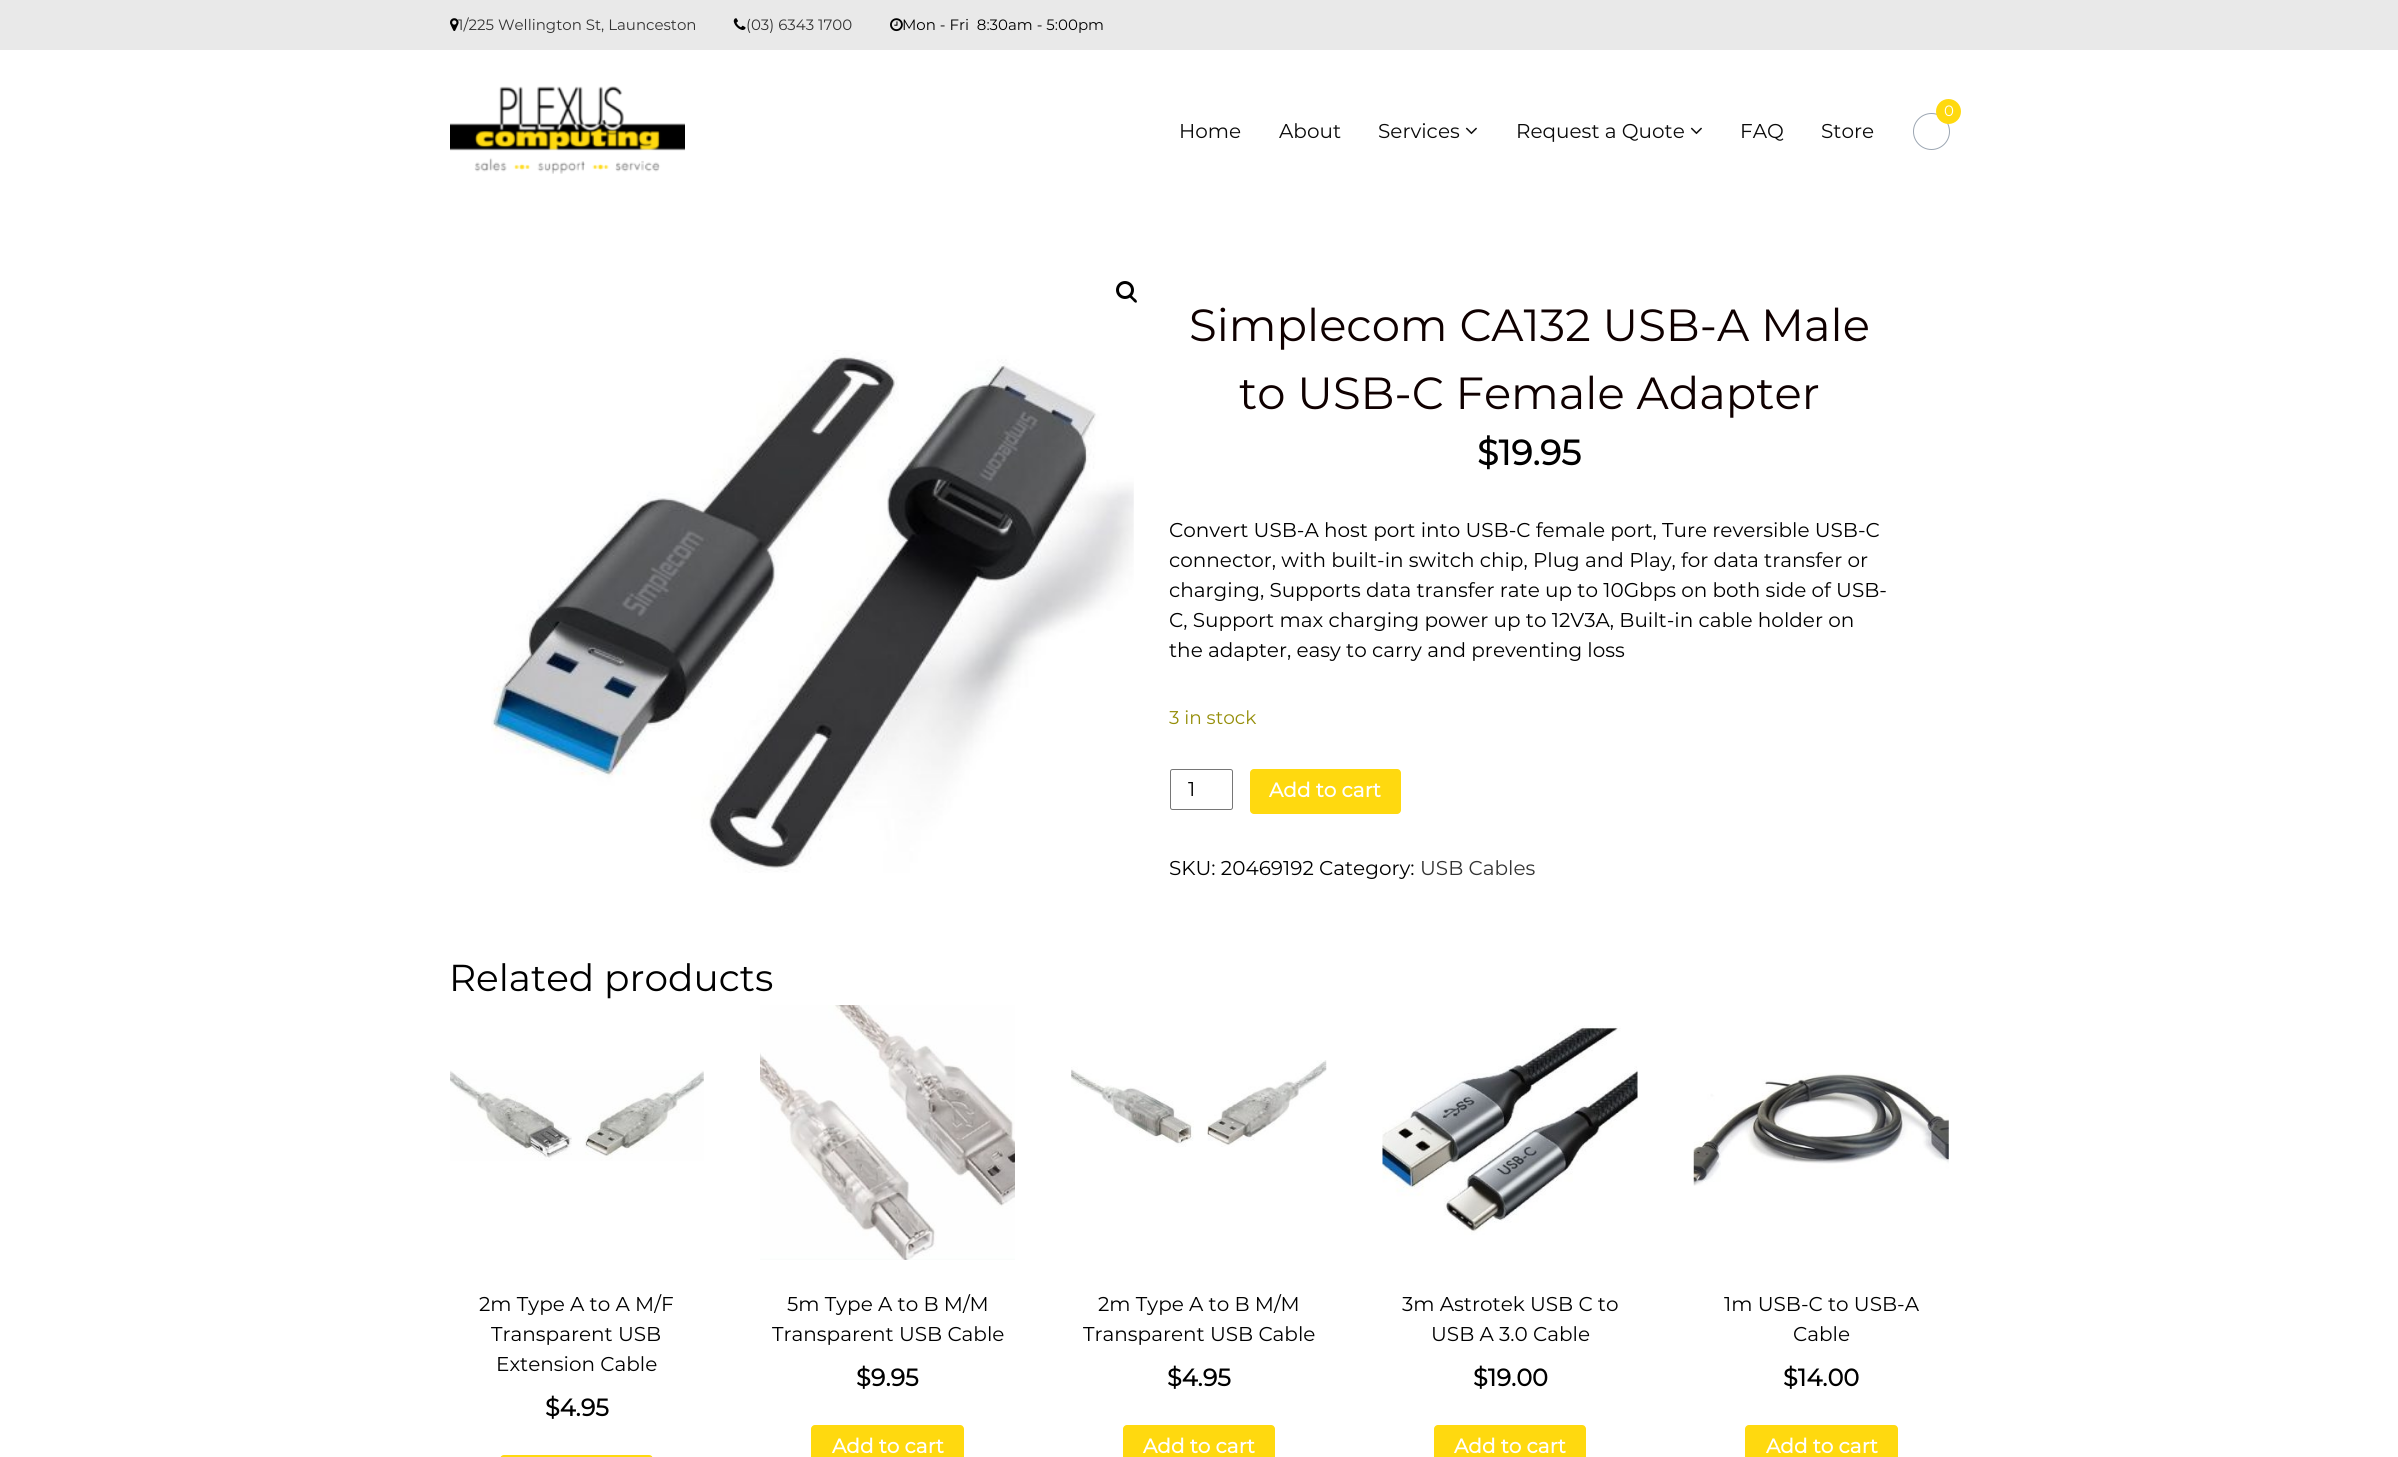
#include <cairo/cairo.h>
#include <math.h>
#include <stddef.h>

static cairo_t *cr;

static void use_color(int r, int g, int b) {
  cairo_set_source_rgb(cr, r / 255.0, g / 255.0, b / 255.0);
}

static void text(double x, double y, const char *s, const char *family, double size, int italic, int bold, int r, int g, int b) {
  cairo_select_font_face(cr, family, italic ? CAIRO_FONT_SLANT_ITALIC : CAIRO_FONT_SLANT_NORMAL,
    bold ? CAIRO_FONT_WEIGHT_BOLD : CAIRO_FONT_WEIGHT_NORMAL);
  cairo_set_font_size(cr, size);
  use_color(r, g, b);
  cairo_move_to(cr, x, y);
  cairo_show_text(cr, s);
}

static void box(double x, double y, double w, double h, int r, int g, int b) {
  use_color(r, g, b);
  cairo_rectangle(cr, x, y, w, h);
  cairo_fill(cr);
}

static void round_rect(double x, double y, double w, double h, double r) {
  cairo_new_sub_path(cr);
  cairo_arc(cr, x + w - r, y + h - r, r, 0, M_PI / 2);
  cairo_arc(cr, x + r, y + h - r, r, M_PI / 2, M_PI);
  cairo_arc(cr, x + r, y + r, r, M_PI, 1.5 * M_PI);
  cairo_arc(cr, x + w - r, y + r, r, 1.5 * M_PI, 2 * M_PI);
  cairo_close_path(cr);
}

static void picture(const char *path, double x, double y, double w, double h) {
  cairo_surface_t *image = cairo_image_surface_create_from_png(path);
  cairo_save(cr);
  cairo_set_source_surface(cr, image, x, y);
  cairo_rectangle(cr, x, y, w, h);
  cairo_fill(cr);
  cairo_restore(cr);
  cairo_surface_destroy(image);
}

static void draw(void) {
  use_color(255, 255, 255);
  cairo_paint(cr);
  box(0, 0, 2398, 50, 233, 233, 233);
  picture("img_01.png", 450, 18, 9, 13);
  picture("img_02.png", 733, 18, 13, 12);
  picture("img_03.png", 890, 18, 13, 14);
  picture("img_04.png", 450, 86, 235, 88);
  cairo_arc(cr, 1931.5, 131.5, 18, 0, 2 * M_PI);
  use_color(156, 166, 178);
  cairo_set_line_width(cr, 1);
  cairo_stroke(cr);
  use_color(255, 217, 15);
  cairo_arc(cr, 1948.5, 111.5, 12.5, 0, 2 * M_PI);
  cairo_fill(cr);
  picture("img_05.png", 1465, 127, 12, 8);
  picture("img_05.png", 1690, 127, 12, 8);
  cairo_arc(cr, 1125, 290, 7.5, 0, 2 * M_PI);
  use_color(0, 0, 0);
  cairo_set_line_width(cr, 3);
  cairo_stroke(cr);
  cairo_new_path(cr);
  cairo_move_to(cr, 1129.5, 295);
  cairo_curve_to(cr, 1131, 294, 1133, 297, 1134, 298);
  cairo_curve_to(cr, 1135, 298.5, 1138, 301, 1136.5, 302.5);
  cairo_curve_to(cr, 1135, 303.5, 1133, 300.5, 1132, 299.5);
  cairo_curve_to(cr, 1131.5, 299, 1128, 296.5, 1129.5, 295);
  cairo_close_path(cr);
  cairo_fill(cr);
  picture("img_06.png", 491, 350, 643, 523);
  round_rect(1170.5, 769.5, 62, 40, 2);
  use_color(118, 118, 118);
  cairo_set_line_width(cr, 1);
  cairo_stroke(cr);
  use_color(255, 217, 15);
  round_rect(1250, 769, 151, 45, 4);
  cairo_fill(cr);
  picture("img_07.png", 450, 1070, 254, 91);
  round_rect(500, 1455, 153, 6, 4);
  cairo_fill(cr);
  picture("img_08.png", 760, 1005, 255, 255);
  round_rect(811, 1425, 153, 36, 4);
  cairo_fill(cr);
  picture("img_09.png", 1071, 1060, 256, 87);
  round_rect(1123, 1425, 152, 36, 4);
  cairo_fill(cr);
  picture("img_10.png", 1382, 1025, 256, 210);
  round_rect(1434, 1425, 152, 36, 4);
  cairo_fill(cr);
  picture("img_11.png", 1693, 1073, 256, 113);
  round_rect(1745, 1425, 153, 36, 4);
  cairo_fill(cr);
  text(458, 30, "1/225 Wellington St, Launceston", "Montserrat", 15, 0, 0, 51, 51, 51);
  text(746, 30, "(03) 6343 1700", "Montserrat", 15, 0, 0, 51, 51, 51);
  text(902, 30, "Mon - Fri  8:30am - 5:00pm", "Montserrat", 15, 0, 0, 0, 0, 0);
  text(1944, 116, "0", "Montserrat", 15, 0, 0, 255, 255, 255);
  text(1179, 138, "Home", "Montserrat", 20, 0, 0, 10, 10, 10);
  text(1279, 138, "About", "Montserrat", 20, 0, 0, 10, 10, 10);
  text(1378, 138, "Services", "Montserrat", 20, 0, 0, 10, 10, 10);
  text(1516, 138, "Request a Quote", "Montserrat", 20, 0, 0, 10, 10, 10);
  text(1740, 138, "FAQ", "Montserrat", 20, 0, 0, 10, 10, 10);
  text(1821, 138, "Store", "Montserrat", 20, 0, 0, 10, 10, 10);
  text(1189, 341, "Simplecom CA132 USB-A Male", "Montserrat", 45, 0, 0, 15, 0, 0);
  text(1239, 409, "to USB-C Female Adapter", "Montserrat", 45, 0, 0, 15, 0, 0);
  text(1477, 465, "$19.95", "Montserrat", 35, 0, 1, 0, 0, 0);
  text(1169, 537, "Convert USB-A host port into USB-C female port, Ture reversible USB-C", "Montserrat", 20, 0, 0, 0, 0, 0);
  text(1169, 567, "connector, with built-in switch chip, Plug and Play, for data transfer or", "Montserrat", 20, 0, 0, 0, 0, 0);
  text(1169, 597, "charging, Supports data transfer rate up to 10Gbps on both side of USB-", "Montserrat", 20, 0, 0, 0, 0, 0);
  text(1169, 627, "C, Support max charging power up to 12V3A, Built-in cable holder on", "Montserrat", 20, 0, 0, 0, 0, 0);
  text(1169, 657, "the adapter, easy to carry and preventing loss", "Montserrat", 20, 0, 0, 0, 0, 0);
  text(1169, 724, "3 in stock", "Montserrat", 18.5, 0, 0, 149, 142, 9);
  text(1188, 796, "1", "Montserrat", 20, 0, 0, 0, 0, 0);
  text(1269, 797, "Add to cart", "Montserrat", 20, 0, 1, 255, 255, 255);
  text(1169, 875, "SKU: 20469192 Category:", "Montserrat", 20, 0, 0, 0, 0, 0);
  text(1420, 875, "USB Cables", "Montserrat", 20, 0, 0, 51, 51, 51);
  text(449, 991, "Related products", "Montserrat", 37.5, 0, 0, 0, 0, 0);
  text(479, 1311, "2m Type A to A M/F", "Montserrat", 20, 0, 0, 0, 0, 0);
  text(491, 1341, "Transparent USB", "Montserrat", 20, 0, 0, 0, 0, 0);
  text(496, 1371, "Extension Cable", "Montserrat", 20, 0, 0, 0, 0, 0);
  text(545, 1416, "$4.95", "Montserrat", 24, 0, 1, 0, 0, 0);
  text(787, 1311, "5m Type A to B M/M", "Montserrat", 20, 0, 0, 0, 0, 0);
  text(772, 1341, "Transparent USB Cable", "Montserrat", 20, 0, 0, 0, 0, 0);
  text(856, 1386, "$9.95", "Montserrat", 24, 0, 1, 0, 0, 0);
  text(832, 1453, "Add to cart", "Montserrat", 20, 0, 1, 255, 255, 255);
  text(1098, 1311, "2m Type A to B M/M", "Montserrat", 20, 0, 0, 0, 0, 0);
  text(1083, 1341, "Transparent USB Cable", "Montserrat", 20, 0, 0, 0, 0, 0);
  text(1167, 1386, "$4.95", "Montserrat", 24, 0, 1, 0, 0, 0);
  text(1143, 1453, "Add to cart", "Montserrat", 20, 0, 1, 255, 255, 255);
  text(1402, 1311, "3m Astrotek USB C to", "Montserrat", 20, 0, 0, 0, 0, 0);
  text(1431, 1341, "USB A 3.0 Cable", "Montserrat", 20, 0, 0, 0, 0, 0);
  text(1473, 1386, "$19.00", "Montserrat", 24, 0, 1, 0, 0, 0);
  text(1454, 1453, "Add to cart", "Montserrat", 20, 0, 1, 255, 255, 255);
  text(1724, 1311, "1m USB-C to USB-A", "Montserrat", 20, 0, 0, 0, 0, 0);
  text(1793, 1341, "Cable", "Montserrat", 20, 0, 0, 0, 0, 0);
  text(1783, 1386, "$14.00", "Montserrat", 24, 0, 1, 0, 0, 0);
  text(1766, 1453, "Add to cart", "Montserrat", 20, 0, 1, 255, 255, 255);
}

int main(void) {
  cairo_surface_t *surface = cairo_image_surface_create(CAIRO_FORMAT_RGB24, 2398, 1457);
  cr = cairo_create(surface);
  cairo_font_options_t *options = cairo_font_options_create();
  cairo_font_options_set_hint_metrics(options, CAIRO_HINT_METRICS_OFF);
  cairo_font_options_set_hint_style(options, CAIRO_HINT_STYLE_NONE);
  cairo_set_font_options(cr, options);
  cairo_set_miter_limit(cr, 4);
  draw();
  cairo_surface_write_to_png(surface, "out.png");
  cairo_font_options_destroy(options);
  cairo_destroy(cr);
  cairo_surface_destroy(surface);
  return 0;
}
